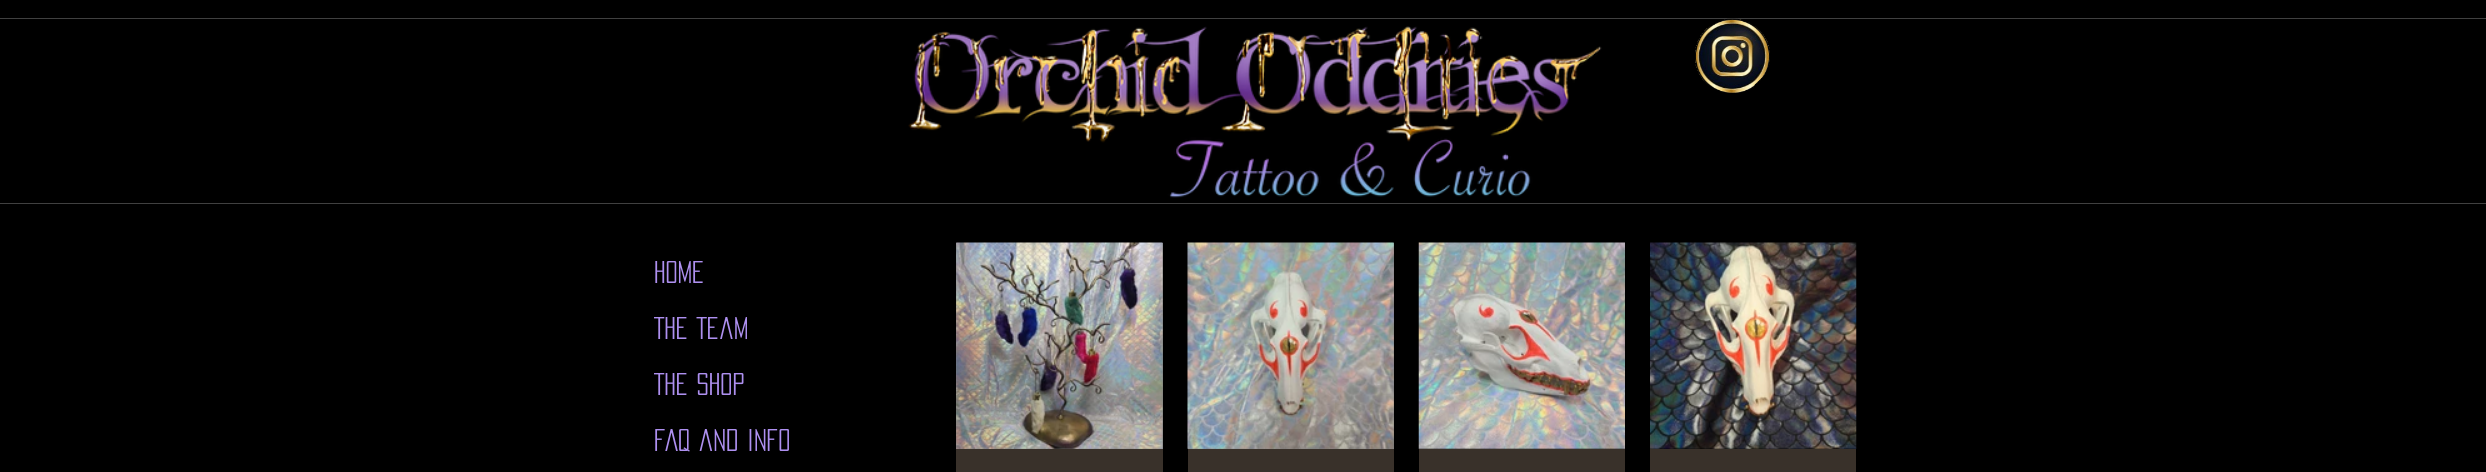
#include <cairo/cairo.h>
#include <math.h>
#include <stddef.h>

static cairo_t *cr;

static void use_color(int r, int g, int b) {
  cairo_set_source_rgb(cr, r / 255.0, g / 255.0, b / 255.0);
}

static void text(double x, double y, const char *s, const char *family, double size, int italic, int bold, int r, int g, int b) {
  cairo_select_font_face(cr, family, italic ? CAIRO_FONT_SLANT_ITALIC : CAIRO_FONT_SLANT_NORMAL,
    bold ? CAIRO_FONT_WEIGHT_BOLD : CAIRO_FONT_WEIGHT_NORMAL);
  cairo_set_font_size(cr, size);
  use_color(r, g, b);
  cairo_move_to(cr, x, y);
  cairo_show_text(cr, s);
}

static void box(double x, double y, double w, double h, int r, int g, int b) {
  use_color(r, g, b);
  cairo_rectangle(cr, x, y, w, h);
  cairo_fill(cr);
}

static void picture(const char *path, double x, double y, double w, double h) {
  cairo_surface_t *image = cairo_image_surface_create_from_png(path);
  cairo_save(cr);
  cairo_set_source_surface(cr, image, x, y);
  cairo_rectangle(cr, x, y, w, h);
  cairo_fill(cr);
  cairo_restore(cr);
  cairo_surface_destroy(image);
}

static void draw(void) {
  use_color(0, 0, 0);
  cairo_paint(cr);
  box(0, 18, 2486, 1, 64, 64, 64);
  box(0, 203, 2486, 1, 64, 64, 64);
  picture("img_01.png", 908, 26, 694, 172);
  picture("img_02.png", 1695, 18, 75, 75);
  box(956, 243, 207, 206, 128, 128, 128);
  picture("img_03.png", 956, 242, 207, 207);
  box(956, 449, 207, 23, 57, 49, 42);
  box(1188, 243, 206, 206, 128, 128, 128);
  picture("img_04.png", 1187, 242, 207, 207);
  box(1188, 449, 206, 23, 57, 49, 42);
  picture("img_05.png", 1418, 242, 207, 207);
  box(1419, 449, 206, 23, 57, 49, 42);
  picture("img_06.png", 1650, 242, 207, 207);
  box(1650, 449, 206, 23, 57, 49, 42);
  text(654, 283, "Home", "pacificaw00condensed", 27.5, 0, 0, 174, 144, 240);
  text(654, 339, "The Team", "pacificaw00condensed", 27.5, 0, 0, 174, 144, 240);
  text(654, 395, "The Shop", "pacificaw00condensed", 27.5, 0, 0, 174, 144, 240);
  text(654, 451, "FAQ and Info", "pacificaw00condensed", 27.5, 0, 0, 174, 144, 240);
}

int main(void) {
  cairo_surface_t *surface = cairo_image_surface_create(CAIRO_FORMAT_RGB24, 2486, 472);
  cr = cairo_create(surface);
  cairo_font_options_t *options = cairo_font_options_create();
  cairo_font_options_set_hint_metrics(options, CAIRO_HINT_METRICS_OFF);
  cairo_font_options_set_hint_style(options, CAIRO_HINT_STYLE_NONE);
  cairo_set_font_options(cr, options);
  cairo_set_miter_limit(cr, 4);
  draw();
  cairo_surface_write_to_png(surface, "out.png");
  cairo_font_options_destroy(options);
  cairo_destroy(cr);
  cairo_surface_destroy(surface);
  return 0;
}
